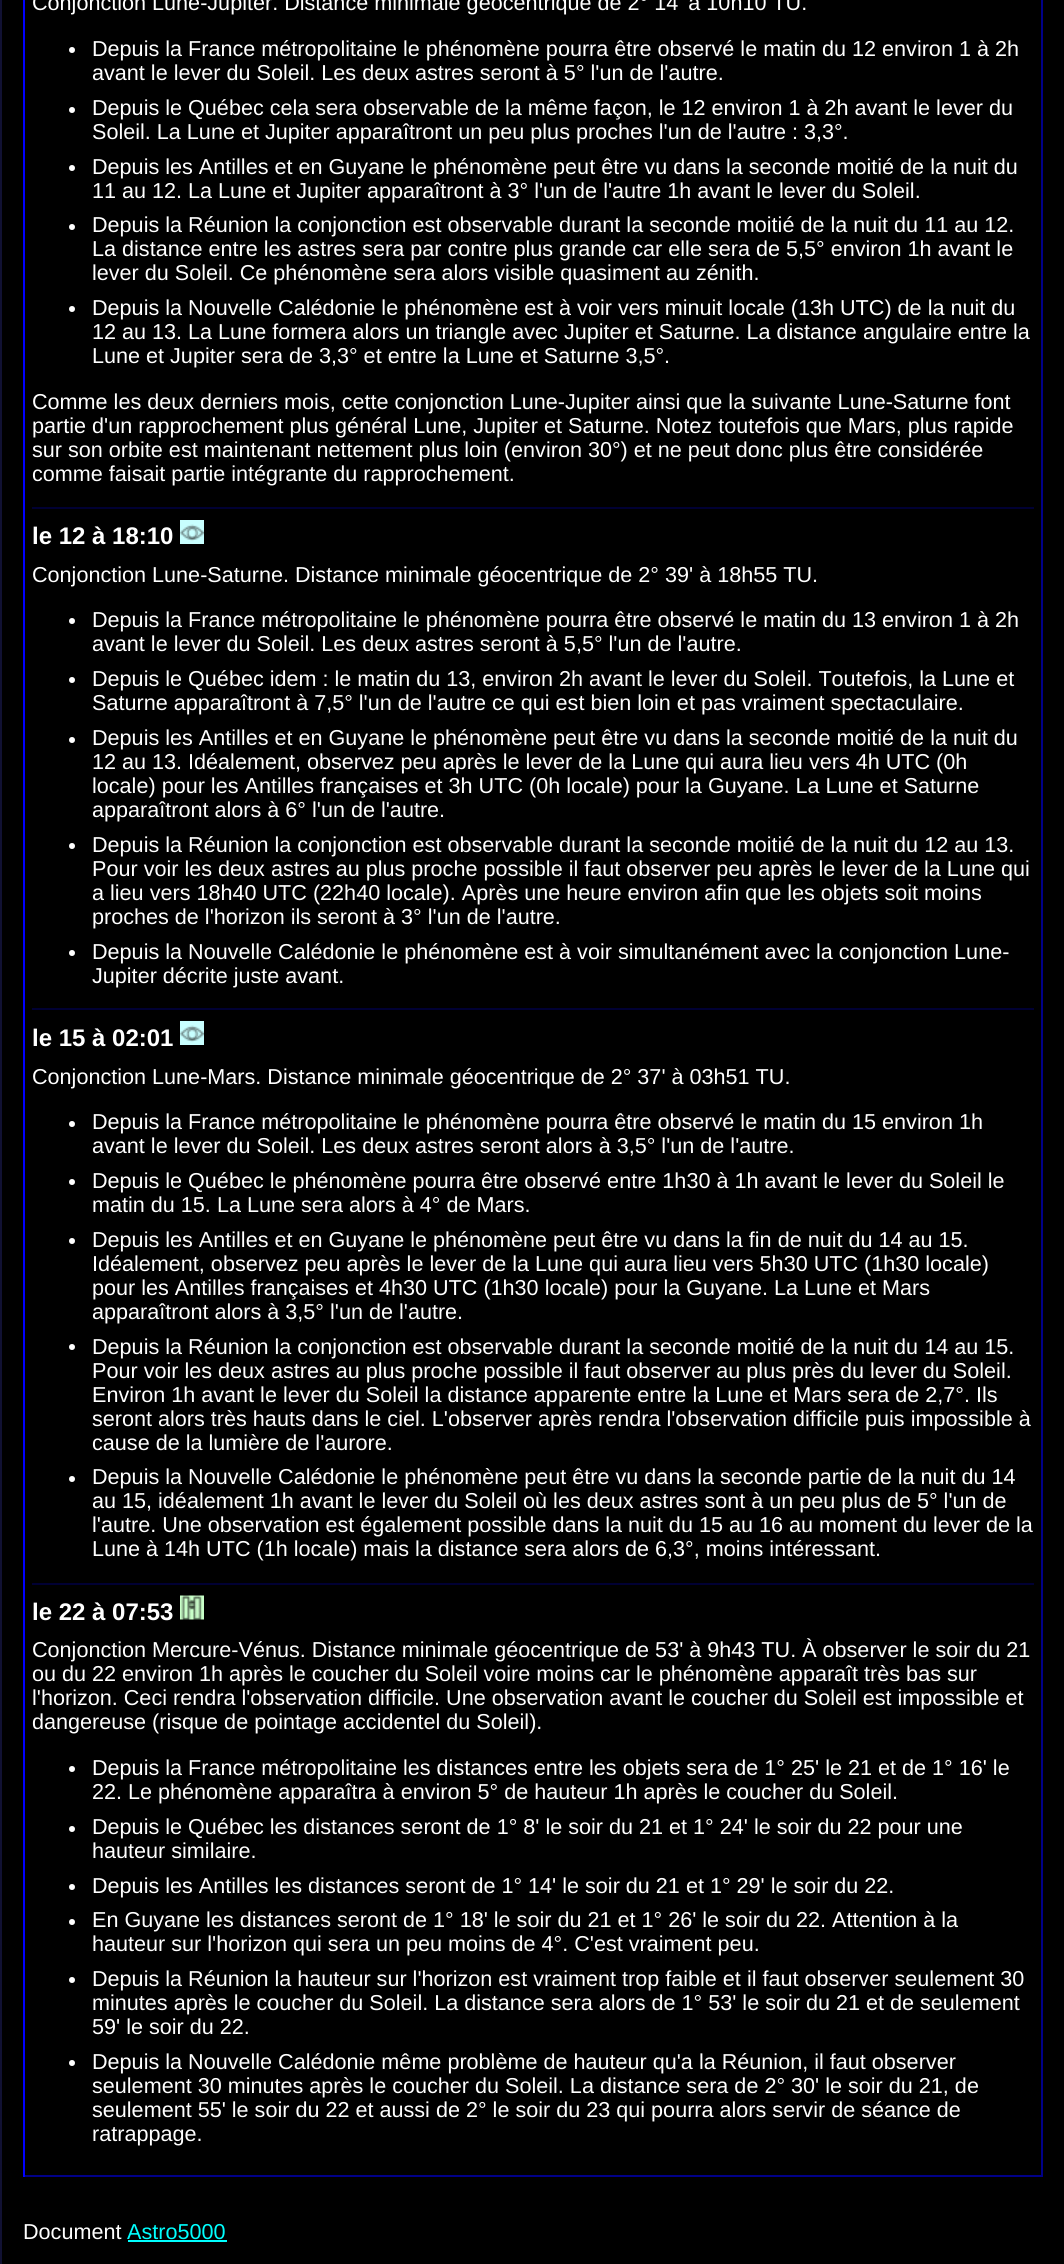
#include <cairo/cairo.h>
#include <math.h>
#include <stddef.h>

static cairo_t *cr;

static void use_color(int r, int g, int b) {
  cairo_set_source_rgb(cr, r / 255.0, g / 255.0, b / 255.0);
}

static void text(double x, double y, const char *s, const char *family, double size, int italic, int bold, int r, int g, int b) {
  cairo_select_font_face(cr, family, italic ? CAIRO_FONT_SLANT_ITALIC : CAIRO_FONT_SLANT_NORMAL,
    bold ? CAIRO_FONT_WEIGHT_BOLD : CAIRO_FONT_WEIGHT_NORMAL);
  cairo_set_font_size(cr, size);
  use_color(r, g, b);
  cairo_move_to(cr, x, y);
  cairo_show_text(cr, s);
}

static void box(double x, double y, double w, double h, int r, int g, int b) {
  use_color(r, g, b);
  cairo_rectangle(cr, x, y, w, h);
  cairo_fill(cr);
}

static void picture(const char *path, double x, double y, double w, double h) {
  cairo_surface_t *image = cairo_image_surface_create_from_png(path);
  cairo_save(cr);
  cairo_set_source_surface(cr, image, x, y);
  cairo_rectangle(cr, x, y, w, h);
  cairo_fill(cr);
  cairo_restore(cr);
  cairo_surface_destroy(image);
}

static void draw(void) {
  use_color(0, 0, 0);
  cairo_paint(cr);
  box(0, 0, 2, 2264, 17, 17, 51);
  box(1041, 0, 2, 2177, 0, 0, 136);
  box(23, 2175, 1020, 2, 0, 0, 136);
  box(23, 0, 2, 2177, 0, 0, 255);
  use_color(255, 255, 255);
  cairo_arc(cr, 72, 50, 3, 0, 2 * M_PI);
  cairo_fill(cr);
  cairo_arc(cr, 72, 110, 3, 0, 2 * M_PI);
  cairo_fill(cr);
  cairo_arc(cr, 72, 168, 3, 0, 2 * M_PI);
  cairo_fill(cr);
  cairo_arc(cr, 72, 227, 3, 0, 2 * M_PI);
  cairo_fill(cr);
  cairo_arc(cr, 72, 309, 3, 0, 2 * M_PI);
  cairo_fill(cr);
  box(32, 507, 1002, 2, 0, 0, 51);
  picture("img_01.png", 180, 520, 24, 24);
  use_color(255, 255, 255);
  cairo_arc(cr, 72, 621, 3, 0, 2 * M_PI);
  cairo_fill(cr);
  cairo_arc(cr, 72, 680, 3, 0, 2 * M_PI);
  cairo_fill(cr);
  cairo_arc(cr, 72, 740, 3, 0, 2 * M_PI);
  cairo_fill(cr);
  cairo_arc(cr, 72, 846, 3, 0, 2 * M_PI);
  cairo_fill(cr);
  cairo_arc(cr, 72, 953, 3, 0, 2 * M_PI);
  cairo_fill(cr);
  box(32, 1008, 1002, 2, 0, 0, 51);
  picture("img_01.png", 180, 1021, 24, 24);
  use_color(255, 255, 255);
  cairo_arc(cr, 72, 1124, 3, 0, 2 * M_PI);
  cairo_fill(cr);
  cairo_arc(cr, 72, 1182, 3, 0, 2 * M_PI);
  cairo_fill(cr);
  cairo_arc(cr, 72, 1241, 3, 0, 2 * M_PI);
  cairo_fill(cr);
  cairo_arc(cr, 72, 1347, 3, 0, 2 * M_PI);
  cairo_fill(cr);
  cairo_arc(cr, 72, 1479, 3, 0, 2 * M_PI);
  cairo_fill(cr);
  box(32, 1583, 1002, 2, 0, 0, 51);
  picture("img_02.png", 180, 1595, 24, 25);
  use_color(255, 255, 255);
  cairo_arc(cr, 72, 1769, 3, 0, 2 * M_PI);
  cairo_fill(cr);
  cairo_arc(cr, 72, 1829, 3, 0, 2 * M_PI);
  cairo_fill(cr);
  cairo_arc(cr, 72, 1887, 3, 0, 2 * M_PI);
  cairo_fill(cr);
  cairo_arc(cr, 72, 1922, 3, 0, 2 * M_PI);
  cairo_fill(cr);
  cairo_arc(cr, 72, 1980, 3, 0, 2 * M_PI);
  cairo_fill(cr);
  cairo_arc(cr, 72, 2063, 3, 0, 2 * M_PI);
  cairo_fill(cr);
  box(128, 2240, 99, 2, 0, 255, 255);
  text(32, 10, "Conjonction Lune-Jupiter. Distance minimale géocentrique de 2° 14' à 10h10 TU.", "Liberation Sans", 21.6, 0, 0, 255, 255, 255);
  text(92, 56, "Depuis la France métropolitaine le phénomène pourra être observé le matin du 12 environ 1 à 2h", "Liberation Sans", 21.6, 0, 0, 255, 255, 255);
  text(92, 80, "avant le lever du Soleil. Les deux astres seront à 5° l'un de l'autre.", "Liberation Sans", 21.6, 0, 0, 255, 255, 255);
  text(92, 115, "Depuis le Québec cela sera observable de la même façon, le 12 environ 1 à 2h avant le lever du", "Liberation Sans", 21.6, 0, 0, 255, 255, 255);
  text(92, 139, "Soleil. La Lune et Jupiter apparaîtront un peu plus proches l'un de l'autre : 3,3°.", "Liberation Sans", 21.6, 0, 0, 255, 255, 255);
  text(92, 174, "Depuis les Antilles et en Guyane le phénomène peut être vu dans la seconde moitié de la nuit du", "Liberation Sans", 21.6, 0, 0, 255, 255, 255);
  text(92, 198, "11 au 12. La Lune et Jupiter apparaîtront à 3° l'un de l'autre 1h avant le lever du Soleil.", "Liberation Sans", 21.6, 0, 0, 255, 255, 255);
  text(92, 232, "Depuis la Réunion la conjonction est observable durant la seconde moitié de la nuit du 11 au 12.", "Liberation Sans", 21.6, 0, 0, 255, 255, 255);
  text(92, 256, "La distance entre les astres sera par contre plus grande car elle sera de 5,5° environ 1h avant le", "Liberation Sans", 21.6, 0, 0, 255, 255, 255);
  text(92, 280, "lever du Soleil. Ce phénomène sera alors visible quasiment au zénith.", "Liberation Sans", 21.6, 0, 0, 255, 255, 255);
  text(92, 315, "Depuis la Nouvelle Calédonie le phénomène est à voir vers minuit locale (13h UTC) de la nuit du", "Liberation Sans", 21.6, 0, 0, 255, 255, 255);
  text(92, 339, "12 au 13. La Lune formera alors un triangle avec Jupiter et Saturne. La distance angulaire entre la", "Liberation Sans", 21.6, 0, 0, 255, 255, 255);
  text(92, 363, "Lune et Jupiter sera de 3,3° et entre la Lune et Saturne 3,5°.", "Liberation Sans", 21.6, 0, 0, 255, 255, 255);
  text(32, 409, "Comme les deux derniers mois, cette conjonction Lune-Jupiter ainsi que la suivante Lune-Saturne font", "Liberation Sans", 21.6, 0, 0, 255, 255, 255);
  text(32, 433, "partie d'un rapprochement plus général Lune, Jupiter et Saturne. Notez toutefois que Mars, plus rapide", "Liberation Sans", 21.6, 0, 0, 255, 255, 255);
  text(32, 457, "sur son orbite est maintenant nettement plus loin (environ 30°) et ne peut donc plus être considérée", "Liberation Sans", 21.6, 0, 0, 255, 255, 255);
  text(32, 481, "comme faisait partie intégrante du rapprochement.", "Liberation Sans", 21.6, 0, 0, 255, 255, 255);
  text(32, 544, "le 12 à 18:10", "Liberation Sans", 24, 0, 1, 255, 255, 255);
  text(32, 582, "Conjonction Lune-Saturne. Distance minimale géocentrique de 2° 39' à 18h55 TU.", "Liberation Sans", 21.6, 0, 0, 255, 255, 255);
  text(92, 627, "Depuis la France métropolitaine le phénomène pourra être observé le matin du 13 environ 1 à 2h", "Liberation Sans", 21.6, 0, 0, 255, 255, 255);
  text(92, 651, "avant le lever du Soleil. Les deux astres seront à 5,5° l'un de l'autre.", "Liberation Sans", 21.6, 0, 0, 255, 255, 255);
  text(92, 686, "Depuis le Québec idem : le matin du 13, environ 2h avant le lever du Soleil. Toutefois, la Lune et", "Liberation Sans", 21.6, 0, 0, 255, 255, 255);
  text(92, 710, "Saturne apparaîtront à 7,5° l'un de l'autre ce qui est bien loin et pas vraiment spectaculaire.", "Liberation Sans", 21.6, 0, 0, 255, 255, 255);
  text(92, 745, "Depuis les Antilles et en Guyane le phénomène peut être vu dans la seconde moitié de la nuit du", "Liberation Sans", 21.6, 0, 0, 255, 255, 255);
  text(92, 769, "12 au 13. Idéalement, observez peu après le lever de la Lune qui aura lieu vers 4h UTC (0h", "Liberation Sans", 21.6, 0, 0, 255, 255, 255);
  text(92, 793, "locale) pour les Antilles françaises et 3h UTC (0h locale) pour la Guyane. La Lune et Saturne", "Liberation Sans", 21.6, 0, 0, 255, 255, 255);
  text(92, 817, "apparaîtront alors à 6° l'un de l'autre.", "Liberation Sans", 21.6, 0, 0, 255, 255, 255);
  text(92, 852, "Depuis la Réunion la conjonction est observable durant la seconde moitié de la nuit du 12 au 13.", "Liberation Sans", 21.6, 0, 0, 255, 255, 255);
  text(92, 876, "Pour voir les deux astres au plus proche possible il faut observer peu après le lever de la Lune qui", "Liberation Sans", 21.6, 0, 0, 255, 255, 255);
  text(92, 900, "a lieu vers 18h40 UTC (22h40 locale). Après une heure environ afin que les objets soit moins", "Liberation Sans", 21.6, 0, 0, 255, 255, 255);
  text(92, 924, "proches de l'horizon ils seront à 3° l'un de l'autre.", "Liberation Sans", 21.6, 0, 0, 255, 255, 255);
  text(92, 959, "Depuis la Nouvelle Calédonie le phénomène est à voir simultanément avec la conjonction Lune-", "Liberation Sans", 21.6, 0, 0, 255, 255, 255);
  text(92, 983, "Jupiter décrite juste avant.", "Liberation Sans", 21.6, 0, 0, 255, 255, 255);
  text(32, 1046, "le 15 à 02:01", "Liberation Sans", 24, 0, 1, 255, 255, 255);
  text(32, 1084, "Conjonction Lune-Mars. Distance minimale géocentrique de 2° 37' à 03h51 TU.", "Liberation Sans", 21.6, 0, 0, 255, 255, 255);
  text(92, 1129, "Depuis la France métropolitaine le phénomène pourra être observé le matin du 15 environ 1h", "Liberation Sans", 21.6, 0, 0, 255, 255, 255);
  text(92, 1153, "avant le lever du Soleil. Les deux astres seront alors à 3,5° l'un de l'autre.", "Liberation Sans", 21.6, 0, 0, 255, 255, 255);
  text(92, 1188, "Depuis le Québec le phénomène pourra être observé entre 1h30 à 1h avant le lever du Soleil le", "Liberation Sans", 21.6, 0, 0, 255, 255, 255);
  text(92, 1212, "matin du 15. La Lune sera alors à 4° de Mars.", "Liberation Sans", 21.6, 0, 0, 255, 255, 255);
  text(92, 1247, "Depuis les Antilles et en Guyane le phénomène peut être vu dans la fin de nuit du 14 au 15.", "Liberation Sans", 21.6, 0, 0, 255, 255, 255);
  text(92, 1271, "Idéalement, observez peu après le lever de la Lune qui aura lieu vers 5h30 UTC (1h30 locale)", "Liberation Sans", 21.6, 0, 0, 255, 255, 255);
  text(92, 1295, "pour les Antilles françaises et 4h30 UTC (1h30 locale) pour la Guyane. La Lune et Mars", "Liberation Sans", 21.6, 0, 0, 255, 255, 255);
  text(92, 1319, "apparaîtront alors à 3,5° l'un de l'autre.", "Liberation Sans", 21.6, 0, 0, 255, 255, 255);
  text(92, 1354, "Depuis la Réunion la conjonction est observable durant la seconde moitié de la nuit du 14 au 15.", "Liberation Sans", 21.6, 0, 0, 255, 255, 255);
  text(92, 1378, "Pour voir les deux astres au plus proche possible il faut observer au plus près du lever du Soleil.", "Liberation Sans", 21.6, 0, 0, 255, 255, 255);
  text(92, 1402, "Environ 1h avant le lever du Soleil la distance apparente entre la Lune et Mars sera de 2,7°. Ils", "Liberation Sans", 21.6, 0, 0, 255, 255, 255);
  text(92, 1426, "seront alors très hauts dans le ciel. L'observer après rendra l'observation difficile puis impossible à", "Liberation Sans", 21.6, 0, 0, 255, 255, 255);
  text(92, 1450, "cause de la lumière de l'aurore.", "Liberation Sans", 21.6, 0, 0, 255, 255, 255);
  text(92, 1484, "Depuis la Nouvelle Calédonie le phénomène peut être vu dans la seconde partie de la nuit du 14", "Liberation Sans", 21.6, 0, 0, 255, 255, 255);
  text(92, 1508, "au 15, idéalement 1h avant le lever du Soleil où les deux astres sont à un peu plus de 5° l'un de", "Liberation Sans", 21.6, 0, 0, 255, 255, 255);
  text(92, 1532, "l'autre. Une observation est également possible dans la nuit du 15 au 16 au moment du lever de la", "Liberation Sans", 21.6, 0, 0, 255, 255, 255);
  text(92, 1556, "Lune à 14h UTC (1h locale) mais la distance sera alors de 6,3°, moins intéressant.", "Liberation Sans", 21.6, 0, 0, 255, 255, 255);
  text(32, 1620, "le 22 à 07:53", "Liberation Sans", 24, 0, 1, 255, 255, 255);
  text(32, 1657, "Conjonction Mercure-Vénus. Distance minimale géocentrique de 53' à 9h43 TU. À observer le soir du 21", "Liberation Sans", 21.6, 0, 0, 255, 255, 255);
  text(32, 1681, "ou du 22 environ 1h après le coucher du Soleil voire moins car le phénomène apparaît très bas sur", "Liberation Sans", 21.6, 0, 0, 255, 255, 255);
  text(32, 1705, "l'horizon. Ceci rendra l'observation difficile. Une observation avant le coucher du Soleil est impossible et", "Liberation Sans", 21.6, 0, 0, 255, 255, 255);
  text(32, 1729, "dangereuse (risque de pointage accidentel du Soleil).", "Liberation Sans", 21.6, 0, 0, 255, 255, 255);
  text(92, 1775, "Depuis la France métropolitaine les distances entre les objets sera de 1° 25' le 21 et de 1° 16' le", "Liberation Sans", 21.6, 0, 0, 255, 255, 255);
  text(92, 1799, "22. Le phénomène apparaîtra à environ 5° de hauteur 1h après le coucher du Soleil.", "Liberation Sans", 21.6, 0, 0, 255, 255, 255);
  text(92, 1834, "Depuis le Québec les distances seront de 1° 8' le soir du 21 et 1° 24' le soir du 22 pour une", "Liberation Sans", 21.6, 0, 0, 255, 255, 255);
  text(92, 1858, "hauteur similaire.", "Liberation Sans", 21.6, 0, 0, 255, 255, 255);
  text(92, 1893, "Depuis les Antilles les distances seront de 1° 14' le soir du 21 et 1° 29' le soir du 22.", "Liberation Sans", 21.6, 0, 0, 255, 255, 255);
  text(92, 1927, "En Guyane les distances seront de 1° 18' le soir du 21 et 1° 26' le soir du 22. Attention à la", "Liberation Sans", 21.6, 0, 0, 255, 255, 255);
  text(92, 1951, "hauteur sur l'horizon qui sera un peu moins de 4°. C'est vraiment peu.", "Liberation Sans", 21.6, 0, 0, 255, 255, 255);
  text(92, 1986, "Depuis la Réunion la hauteur sur l'horizon est vraiment trop faible et il faut observer seulement 30", "Liberation Sans", 21.6, 0, 0, 255, 255, 255);
  text(92, 2010, "minutes après le coucher du Soleil. La distance sera alors de 1° 53' le soir du 21 et de seulement", "Liberation Sans", 21.6, 0, 0, 255, 255, 255);
  text(92, 2034, "59' le soir du 22.", "Liberation Sans", 21.6, 0, 0, 255, 255, 255);
  text(92, 2069, "Depuis la Nouvelle Calédonie même problème de hauteur qu'a la Réunion, il faut observer", "Liberation Sans", 21.6, 0, 0, 255, 255, 255);
  text(92, 2093, "seulement 30 minutes après le coucher du Soleil. La distance sera de 2° 30' le soir du 21, de", "Liberation Sans", 21.6, 0, 0, 255, 255, 255);
  text(92, 2117, "seulement 55' le soir du 22 et aussi de 2° le soir du 23 qui pourra alors servir de séance de", "Liberation Sans", 21.6, 0, 0, 255, 255, 255);
  text(92, 2141, "ratrappage.", "Liberation Sans", 21.6, 0, 0, 255, 255, 255);
  text(23, 2239, "Document", "Liberation Sans", 21.6, 0, 0, 255, 255, 255);
  text(127, 2239, "Astro5000", "Liberation Sans", 21.6, 0, 0, 0, 255, 255);
}

int main(void) {
  cairo_surface_t *surface = cairo_image_surface_create(CAIRO_FORMAT_RGB24, 1064, 2264);
  cr = cairo_create(surface);
  cairo_font_options_t *options = cairo_font_options_create();
  cairo_font_options_set_hint_metrics(options, CAIRO_HINT_METRICS_OFF);
  cairo_font_options_set_hint_style(options, CAIRO_HINT_STYLE_NONE);
  cairo_set_font_options(cr, options);
  cairo_set_miter_limit(cr, 4);
  draw();
  cairo_surface_write_to_png(surface, "out.png");
  cairo_font_options_destroy(options);
  cairo_destroy(cr);
  cairo_surface_destroy(surface);
  return 0;
}
